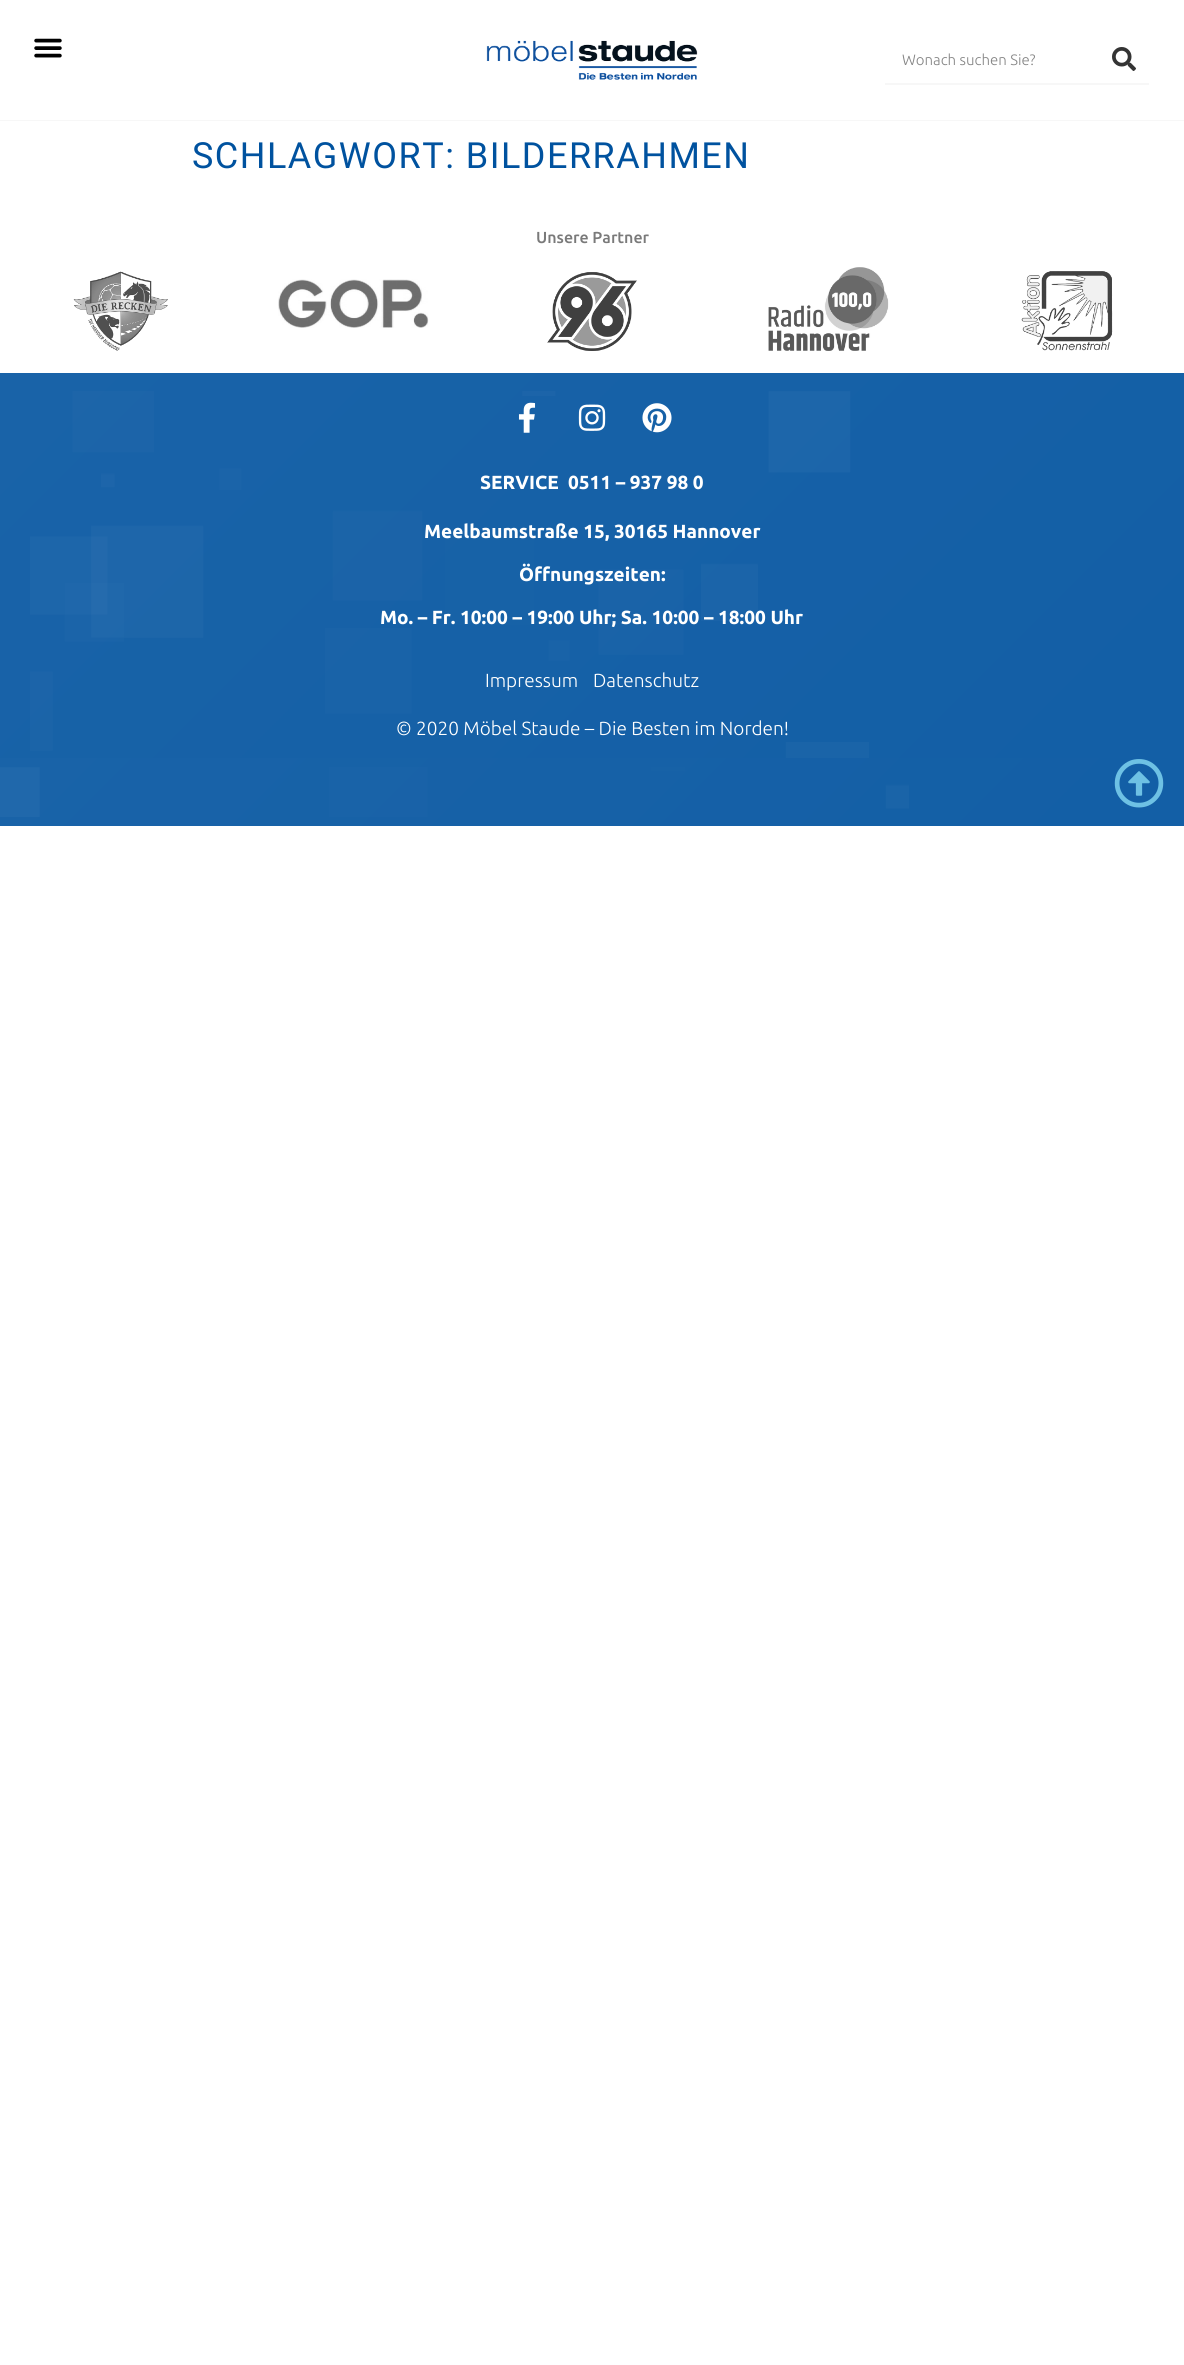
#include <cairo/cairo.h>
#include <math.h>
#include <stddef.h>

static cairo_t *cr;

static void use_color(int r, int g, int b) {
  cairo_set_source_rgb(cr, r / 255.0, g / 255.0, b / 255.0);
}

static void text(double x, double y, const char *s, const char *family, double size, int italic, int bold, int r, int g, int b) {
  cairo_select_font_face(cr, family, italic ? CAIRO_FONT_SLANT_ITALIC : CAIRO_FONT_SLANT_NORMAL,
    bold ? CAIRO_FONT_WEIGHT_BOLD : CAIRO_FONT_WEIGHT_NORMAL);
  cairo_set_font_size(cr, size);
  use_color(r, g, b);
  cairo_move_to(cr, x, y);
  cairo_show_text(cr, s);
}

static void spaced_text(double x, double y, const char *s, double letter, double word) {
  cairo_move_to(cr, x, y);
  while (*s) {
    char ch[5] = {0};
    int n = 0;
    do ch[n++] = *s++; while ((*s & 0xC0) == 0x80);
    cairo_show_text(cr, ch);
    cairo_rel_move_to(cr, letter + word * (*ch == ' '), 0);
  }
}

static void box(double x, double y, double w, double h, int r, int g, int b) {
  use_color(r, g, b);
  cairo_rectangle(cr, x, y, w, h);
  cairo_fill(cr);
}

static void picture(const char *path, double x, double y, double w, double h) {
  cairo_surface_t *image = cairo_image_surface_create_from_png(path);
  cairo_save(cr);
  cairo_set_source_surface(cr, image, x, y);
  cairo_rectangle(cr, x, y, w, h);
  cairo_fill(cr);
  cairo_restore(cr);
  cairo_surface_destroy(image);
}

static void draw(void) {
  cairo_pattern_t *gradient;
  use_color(255, 255, 255);
  cairo_paint(cr);
  box(0, 120, 1184, 1, 247, 247, 247);
  picture("img_01.png", 34, 38, 28, 20);
  picture("img_02.png", 486, 40, 212, 40);
  box(885, 83, 264, 2, 247, 247, 247);
  picture("img_03.png", 1112, 47, 24, 24);
  picture("img_04.png", 73, 271, 95, 80);
  picture("img_05.png", 278, 279, 151, 49);
  picture("img_06.png", 547, 272, 90, 79);
  picture("img_07.png", 768, 267, 121, 84);
  picture("img_08.png", 1021, 271, 92, 80);
  gradient = cairo_pattern_create_linear(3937, 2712, 799, -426);
  cairo_pattern_add_color_stop_rgba(gradient, 0, 0, 0.322, 0.624, 1);
  cairo_pattern_add_color_stop_rgba(gradient, 1, 0.098, 0.388, 0.659, 1);
  cairo_set_source(cr, gradient);
  cairo_pattern_destroy(gradient);
  cairo_rectangle(cr, 0, 373, 1184, 385);
  cairo_fill(cr);
  picture("img_09.png", 30, 391, 839, 367);
  picture("img_10.png", 518, 402, 18, 31);
  picture("img_11.png", 578, 404, 28, 27);
  picture("img_12.png", 642, 403, 30, 30);
  gradient = cairo_pattern_create_linear(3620, 2146, 1116, -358);
  cairo_pattern_add_color_stop_rgba(gradient, 0, 0, 0.322, 0.624, 1);
  cairo_pattern_add_color_stop_rgba(gradient, 1, 0.098, 0.388, 0.659, 1);
  cairo_set_source(cr, gradient);
  cairo_pattern_destroy(gradient);
  cairo_rectangle(cr, 0, 758, 1184, 68);
  cairo_fill(cr);
  picture("img_13.png", 0, 767, 909, 50);
  picture("img_14.png", 1114, 759, 50, 49);
  text(902, 65, "Wonach suchen Sie?", "Ubuntu Light", 15, 0, 0, 132, 132, 132);
  cairo_select_font_face(cr, "Roboto", CAIRO_FONT_SLANT_NORMAL, CAIRO_FONT_WEIGHT_NORMAL);
  cairo_set_font_size(cr, 36);
  use_color(0, 82, 159);
  spaced_text(192, 168, "SCHLAGWORT: BILDERRAHMEN", 1.5, 0);
  text(536, 243, "Unsere Partner", "Ubuntu Medium", 16, 0, 0, 122, 122, 122);
  text(480, 489, "SERVICE", "Ubuntu", 19, 0, 1, 255, 255, 255);
  text(568, 489, "0511 – 937 98 0", "Ubuntu", 19, 0, 1, 255, 255, 255);
  text(424, 538, "Meelbaumstraße 15, 30165 Hannover", "Ubuntu", 19, 0, 1, 255, 255, 255);
  text(519, 581, "Öffnungszeiten:", "Ubuntu", 19, 0, 1, 255, 255, 255);
  text(380, 624, "Mo. – Fr. 10:00 – 19:00 Uhr; Sa. 10:00 – 18:00 Uhr", "Ubuntu", 19, 0, 1, 255, 255, 255);
  text(485, 687, "Impressum", "Ubuntu Light", 19, 0, 0, 255, 255, 255);
  text(593, 687, "Datenschutz", "Ubuntu Light", 19, 0, 0, 255, 255, 255);
  text(396, 735, "© 2020 Möbel Staude – Die Besten im Norden!", "Ubuntu Light", 19, 0, 0, 255, 255, 255);
}

int main(void) {
  cairo_surface_t *surface = cairo_image_surface_create(CAIRO_FORMAT_RGB24, 1184, 2365);
  cr = cairo_create(surface);
  cairo_font_options_t *options = cairo_font_options_create();
  cairo_font_options_set_hint_metrics(options, CAIRO_HINT_METRICS_OFF);
  cairo_font_options_set_hint_style(options, CAIRO_HINT_STYLE_NONE);
  cairo_set_font_options(cr, options);
  cairo_set_miter_limit(cr, 4);
  draw();
  cairo_surface_write_to_png(surface, "out.png");
  cairo_font_options_destroy(options);
  cairo_destroy(cr);
  cairo_surface_destroy(surface);
  return 0;
}
